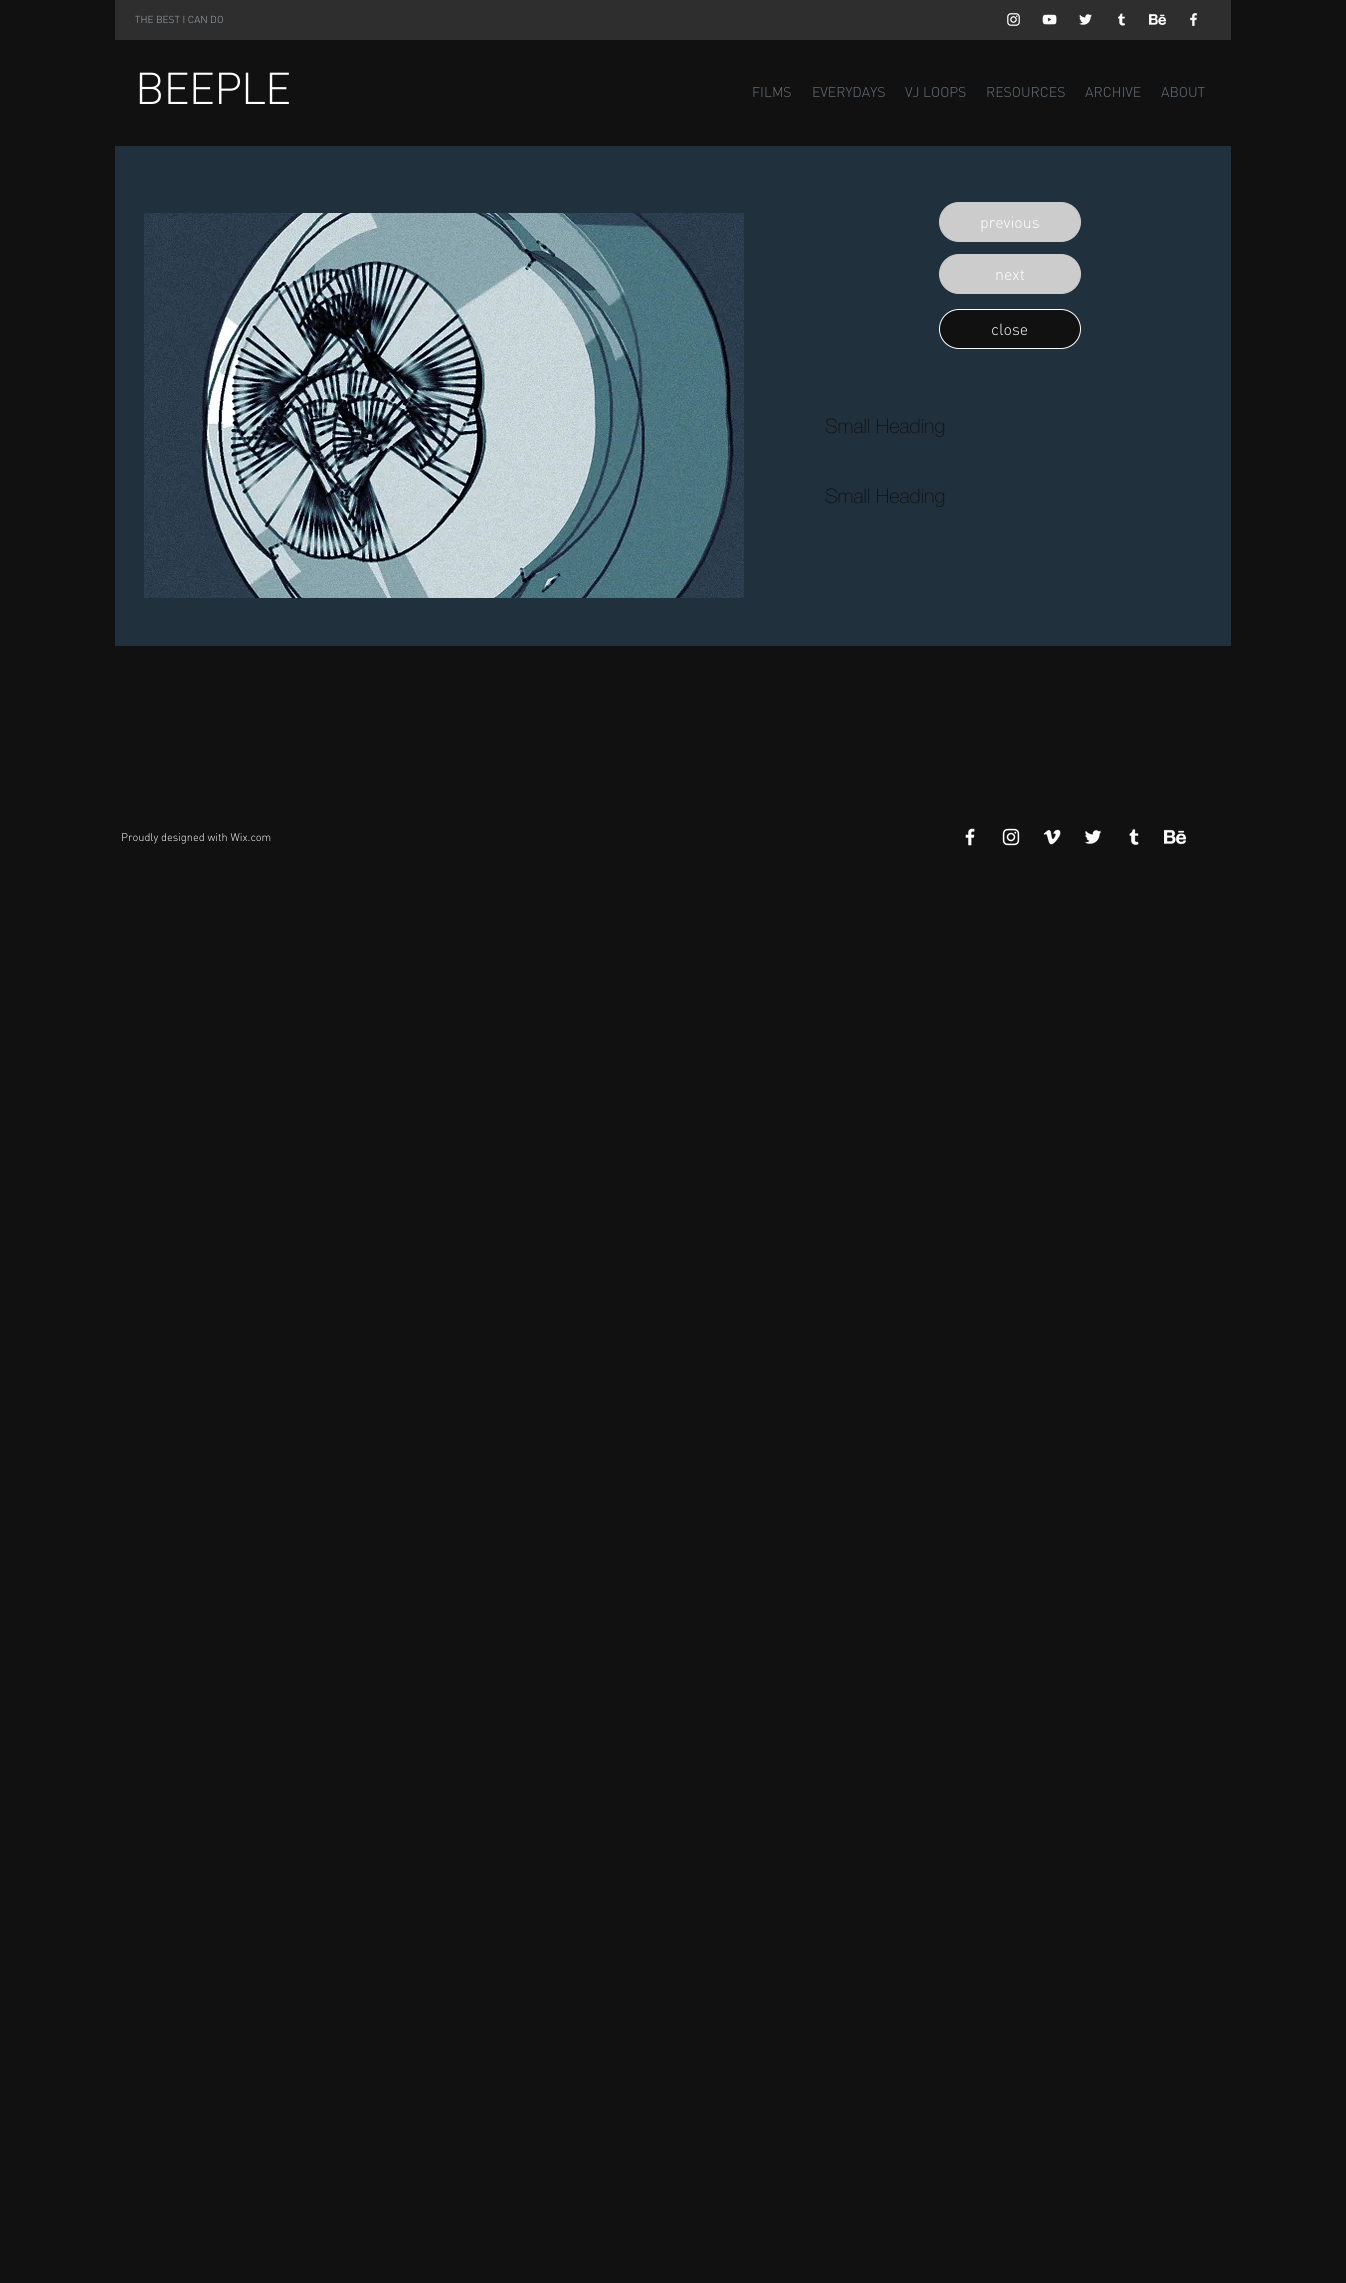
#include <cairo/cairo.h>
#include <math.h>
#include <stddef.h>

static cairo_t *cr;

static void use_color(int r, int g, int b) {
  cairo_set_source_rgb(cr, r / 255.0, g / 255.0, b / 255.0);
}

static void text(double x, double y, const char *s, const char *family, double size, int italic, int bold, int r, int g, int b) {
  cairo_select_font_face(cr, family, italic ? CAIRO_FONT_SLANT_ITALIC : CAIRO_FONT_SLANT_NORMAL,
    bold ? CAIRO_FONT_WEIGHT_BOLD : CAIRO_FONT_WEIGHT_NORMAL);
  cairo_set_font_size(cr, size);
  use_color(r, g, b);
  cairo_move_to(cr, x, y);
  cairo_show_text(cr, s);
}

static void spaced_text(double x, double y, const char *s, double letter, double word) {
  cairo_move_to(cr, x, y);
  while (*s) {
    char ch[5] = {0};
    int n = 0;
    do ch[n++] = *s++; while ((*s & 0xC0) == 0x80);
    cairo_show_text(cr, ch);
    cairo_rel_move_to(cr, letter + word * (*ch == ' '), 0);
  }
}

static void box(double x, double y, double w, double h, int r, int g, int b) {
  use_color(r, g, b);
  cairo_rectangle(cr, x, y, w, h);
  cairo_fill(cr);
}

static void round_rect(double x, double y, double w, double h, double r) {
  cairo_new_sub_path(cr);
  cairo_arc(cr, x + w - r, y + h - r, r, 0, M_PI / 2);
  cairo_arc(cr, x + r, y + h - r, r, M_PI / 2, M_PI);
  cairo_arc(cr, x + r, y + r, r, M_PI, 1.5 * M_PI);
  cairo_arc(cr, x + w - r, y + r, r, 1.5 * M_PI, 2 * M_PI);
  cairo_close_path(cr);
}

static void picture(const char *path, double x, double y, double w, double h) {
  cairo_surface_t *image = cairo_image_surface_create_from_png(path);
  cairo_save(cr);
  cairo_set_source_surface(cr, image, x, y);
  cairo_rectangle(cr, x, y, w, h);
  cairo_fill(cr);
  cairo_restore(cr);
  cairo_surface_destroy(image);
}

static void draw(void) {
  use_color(17, 17, 17);
  cairo_paint(cr);
  box(115, 0, 1116, 40, 47, 46, 46);
  picture("img_01.png", 1007, 13, 13, 13);
  picture("img_02.png", 1042, 14, 15, 11);
  picture("img_03.png", 1079, 14, 13, 11);
  picture("img_04.png", 1118, 13, 7, 13);
  picture("img_05.png", 1149, 14, 17, 11);
  picture("img_06.png", 1190, 13, 7, 13);
  box(115, 146, 1116, 500, 32, 48, 60);
  picture("img_07.png", 144, 213, 600, 385);
  use_color(204, 204, 204);
  round_rect(939.5, 202.5, 141, 39, 19.5);
  cairo_fill_preserve(cr);
  cairo_set_line_width(cr, 1);
  cairo_stroke(cr);
  round_rect(939.5, 254.5, 141, 39, 19.5);
  cairo_fill_preserve(cr);
  cairo_stroke(cr);
  use_color(17, 17, 17);
  round_rect(939.5, 309.5, 141, 39, 19.5);
  cairo_fill_preserve(cr);
  use_color(255, 255, 255);
  cairo_stroke(cr);
  picture("img_08.png", 965, 828, 10, 18);
  picture("img_09.png", 1002, 828, 18, 18);
  picture("img_10.png", 1043, 829, 18, 16);
  picture("img_11.png", 1085, 830, 17, 14);
  picture("img_12.png", 1129, 829, 10, 16);
  picture("img_13.png", 1164, 829, 22, 16);
  text(135, 23, "THE BEST I CAN DO", "DIN Light", 10, 0, 0, 163, 171, 176);
  cairo_set_font_size(cr, 44);
  use_color(255, 255, 255);
  spaced_text(135, 104, "BEEPLE", -1, 0);
  text(752, 97, "FILMS", "DIN Light", 14, 0, 0, 102, 115, 124);
  text(812, 97, "EVERYDAYS", "DIN Light", 14, 0, 0, 102, 115, 124);
  text(905, 97, "VJ LOOPS", "DIN Light", 14, 0, 0, 102, 115, 124);
  text(986, 97, "RESOURCES", "DIN Light", 14, 0, 0, 102, 115, 124);
  text(1085, 97, "ARCHIVE", "DIN Light", 14, 0, 0, 102, 115, 124);
  text(1161, 97, "ABOUT", "DIN Light", 14, 0, 0, 102, 115, 124);
  text(980, 228, "previous", "DIN Light", 16, 0, 0, 255, 255, 255);
  text(995, 280, "next", "DIN Light", 16, 0, 0, 255, 255, 255);
  text(991, 335, "close", "DIN Light", 16, 0, 0, 255, 255, 255);
  text(825, 433, "Small Heading", "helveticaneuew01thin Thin", 20, 0, 0, 17, 17, 17);
  text(825, 503, "Small Heading", "helveticaneuew01thin Thin", 20, 0, 0, 17, 17, 17);
  text(121, 841, "Proudly designed with Wix.com", "DIN Light", 11, 0, 0, 255, 255, 255);
}

int main(void) {
  cairo_surface_t *surface = cairo_image_surface_create(CAIRO_FORMAT_RGB24, 1346, 2283);
  cr = cairo_create(surface);
  cairo_font_options_t *options = cairo_font_options_create();
  cairo_font_options_set_hint_metrics(options, CAIRO_HINT_METRICS_OFF);
  cairo_font_options_set_hint_style(options, CAIRO_HINT_STYLE_NONE);
  cairo_set_font_options(cr, options);
  cairo_set_miter_limit(cr, 4);
  draw();
  cairo_surface_write_to_png(surface, "out.png");
  cairo_font_options_destroy(options);
  cairo_destroy(cr);
  cairo_surface_destroy(surface);
  return 0;
}
